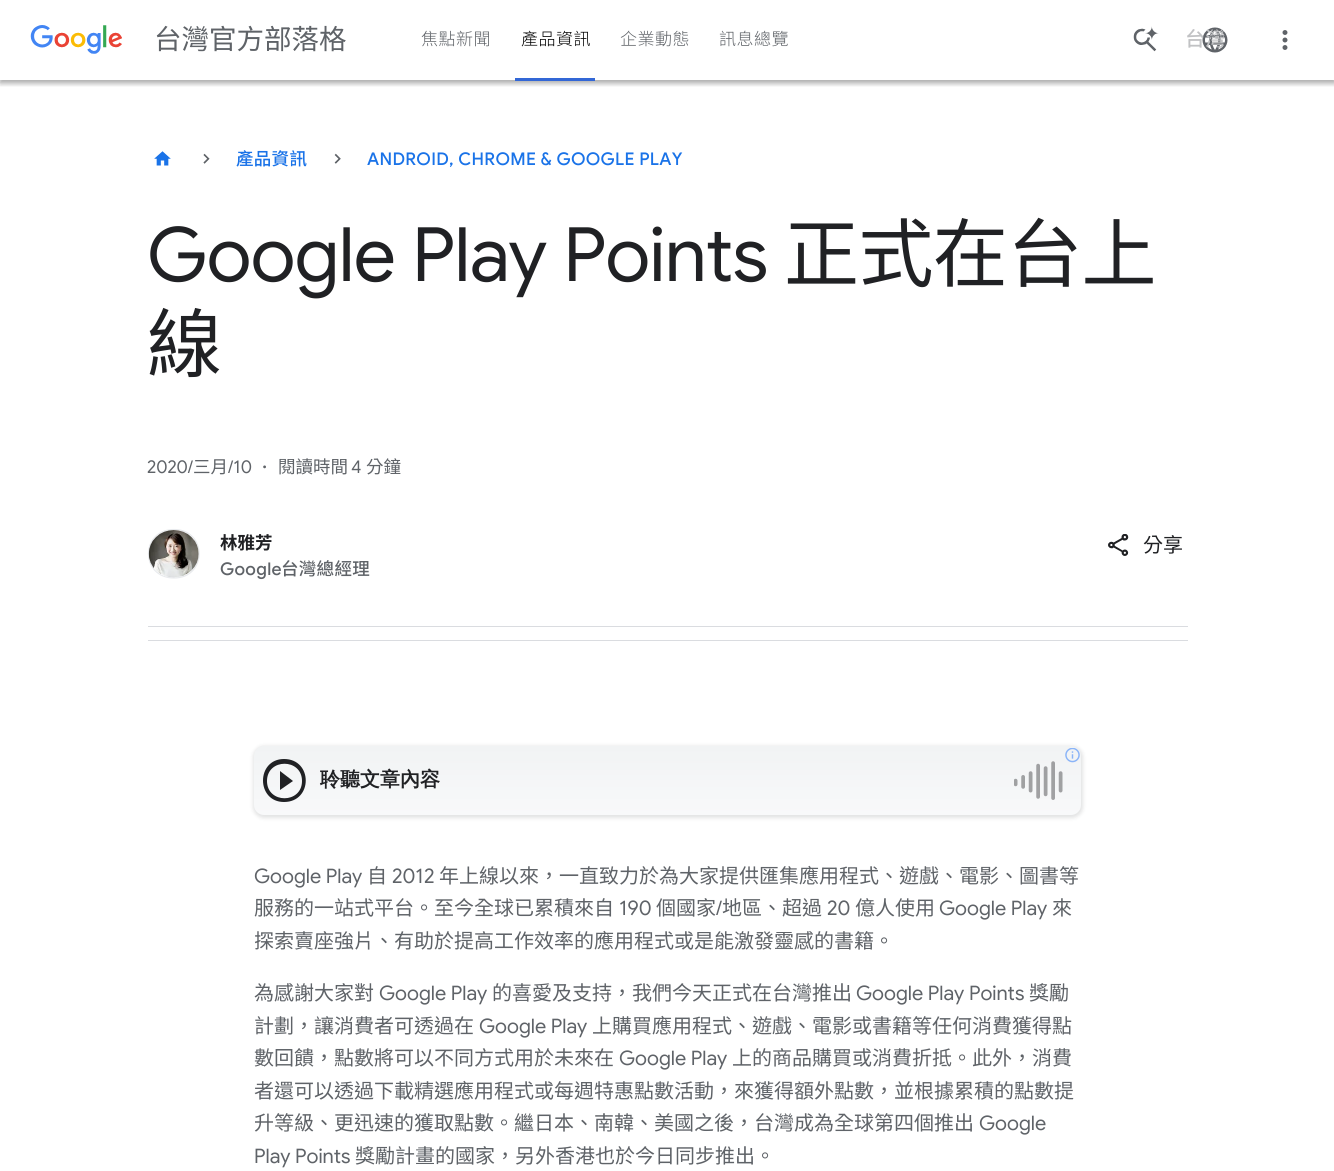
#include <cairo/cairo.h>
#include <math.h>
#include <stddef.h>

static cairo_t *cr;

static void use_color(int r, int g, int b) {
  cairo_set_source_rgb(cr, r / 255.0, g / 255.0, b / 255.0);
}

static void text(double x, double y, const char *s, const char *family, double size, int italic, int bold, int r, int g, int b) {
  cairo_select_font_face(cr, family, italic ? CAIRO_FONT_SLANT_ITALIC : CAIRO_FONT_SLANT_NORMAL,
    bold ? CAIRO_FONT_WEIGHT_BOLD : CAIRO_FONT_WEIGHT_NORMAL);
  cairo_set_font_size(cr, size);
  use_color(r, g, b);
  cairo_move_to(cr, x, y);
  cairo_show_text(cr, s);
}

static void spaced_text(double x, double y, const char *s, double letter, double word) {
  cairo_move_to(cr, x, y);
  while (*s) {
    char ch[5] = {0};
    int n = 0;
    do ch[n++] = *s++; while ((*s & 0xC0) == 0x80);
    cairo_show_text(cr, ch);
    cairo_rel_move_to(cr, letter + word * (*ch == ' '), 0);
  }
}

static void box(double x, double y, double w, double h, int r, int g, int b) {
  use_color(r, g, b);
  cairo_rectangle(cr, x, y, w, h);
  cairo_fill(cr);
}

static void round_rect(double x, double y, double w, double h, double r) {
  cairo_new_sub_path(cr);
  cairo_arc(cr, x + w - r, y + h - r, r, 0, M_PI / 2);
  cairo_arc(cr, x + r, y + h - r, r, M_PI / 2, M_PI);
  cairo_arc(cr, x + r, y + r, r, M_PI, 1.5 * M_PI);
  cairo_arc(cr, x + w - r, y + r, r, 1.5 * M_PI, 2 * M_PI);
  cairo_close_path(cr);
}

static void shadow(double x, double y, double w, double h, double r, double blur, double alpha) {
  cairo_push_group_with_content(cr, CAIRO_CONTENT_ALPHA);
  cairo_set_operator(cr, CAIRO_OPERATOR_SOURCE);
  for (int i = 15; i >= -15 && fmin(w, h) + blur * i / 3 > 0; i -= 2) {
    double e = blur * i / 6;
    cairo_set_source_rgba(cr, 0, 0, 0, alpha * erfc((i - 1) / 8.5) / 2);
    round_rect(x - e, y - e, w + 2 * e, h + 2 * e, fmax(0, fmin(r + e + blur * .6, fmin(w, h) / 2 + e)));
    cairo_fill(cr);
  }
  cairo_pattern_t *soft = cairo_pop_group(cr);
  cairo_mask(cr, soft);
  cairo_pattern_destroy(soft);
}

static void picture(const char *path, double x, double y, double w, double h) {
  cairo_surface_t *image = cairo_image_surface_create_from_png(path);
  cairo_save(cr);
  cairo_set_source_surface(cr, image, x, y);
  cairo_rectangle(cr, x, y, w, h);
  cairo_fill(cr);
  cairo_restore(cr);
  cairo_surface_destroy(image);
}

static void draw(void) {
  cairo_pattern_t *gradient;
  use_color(255, 255, 255);
  cairo_paint(cr);
  cairo_save(cr);
  cairo_rectangle(cr, 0, 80, 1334, 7);
  cairo_clip(cr);
  use_color(0, 0, 0);
  shadow(0, 3, 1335, 80, 0, 3, 0.23);
  cairo_restore(cr);
  cairo_save(cr);
  cairo_rectangle(cr, 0, 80, 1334, 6);
  cairo_clip(cr);
  use_color(0, 0, 0);
  shadow(0, 3, 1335, 80, 0, 3, 0.16);
  cairo_restore(cr);
  picture("img_01.png", 30, 25, 92, 29);
  box(515, 78, 80, 3, 51, 103, 214);
  picture("img_02.png", 1133, 26, 26, 26);
  picture("img_03.png", 1202, 27, 26, 26);
  picture("img_04.png", 1282, 30, 6, 20);
  picture("img_05.png", 154, 151, 17, 15);
  picture("img_06.png", 203, 153, 7, 11);
  picture("img_07.png", 334, 153, 7, 11);
  cairo_new_path(cr);
  cairo_move_to(cr, 174, 529.5);
  cairo_curve_to(cr, 207.5, 529.5, 207.5, 578, 174, 578);
  cairo_curve_to(cr, 140, 578, 140, 529.5, 174, 529.5);
  cairo_close_path(cr);
  use_color(232, 234, 237);
  cairo_set_line_width(cr, 1.2);
  cairo_stroke(cr);
  picture("img_08.png", 148, 530, 51, 48);
  picture("img_09.png", 1108, 534, 21, 22);
  box(148, 626, 1040, 1, 218, 220, 224);
  box(148, 640, 1040, 1, 218, 220, 224);
  use_color(60, 64, 67);
  shadow(253, 746, 830, 72, 11, 2, 0.15);
  gradient = cairo_pattern_create_linear(668, 746, 668, 815);
  cairo_pattern_add_color_stop_rgba(gradient, 0, 0.945, 0.953, 0.957, 1);
  cairo_pattern_add_color_stop_rgba(gradient, 1, 0.973, 0.976, 0.98, 1);
  cairo_set_source(cr, gradient);
  cairo_pattern_destroy(gradient);
  round_rect(254, 746, 827, 69, 10);
  cairo_fill(cr);
  picture("img_10.png", 1065, 748, 15, 15);
  use_color(32, 33, 36);
  cairo_set_fill_rule(cr, CAIRO_FILL_RULE_EVEN_ODD);
  cairo_new_path(cr);
  cairo_move_to(cr, 284, 759);
  cairo_curve_to(cr, 256, 759, 256, 802, 284, 802);
  cairo_curve_to(cr, 313, 802, 313, 759, 284, 759);
  cairo_close_path(cr);
  cairo_move_to(cr, 280, 790);
  cairo_line_to(cr, 293, 781);
  cairo_line_to(cr, 280, 771);
  cairo_close_path(cr);
  cairo_move_to(cr, 267, 781);
  cairo_curve_to(cr, 267, 804, 302, 804, 302, 781);
  cairo_curve_to(cr, 302, 758, 267, 758, 267, 781);
  cairo_close_path(cr);
  cairo_fill(cr);
  picture("img_11.png", 1014, 761, 49, 39);
  text(154, 49, "台灣官方部落格", "Noto Sans TC", 27.5, 0, 0, 95, 99, 104);
  cairo_select_font_face(cr, "Noto Sans TC Light", CAIRO_FONT_SLANT_NORMAL, CAIRO_FONT_WEIGHT_NORMAL);
  cairo_set_font_size(cr, 17);
  spaced_text(421, 45, "焦點新聞", 0.5, 0);
  use_color(0, 0, 0);
  spaced_text(521, 45, "產品資訊", 0.5, 0);
  use_color(95, 99, 104);
  spaced_text(620, 45, "企業動態", 0.5, 0);
  spaced_text(719, 45, "訊息總覽", 0.5, 0);
  cairo_select_font_face(cr, "Noto Sans TC Medium", CAIRO_FONT_SLANT_NORMAL, CAIRO_FONT_WEIGHT_NORMAL);
  cairo_set_font_size(cr, 20);
  use_color(193, 194, 196);
  spaced_text(1185, 46, "台灣", 0.3, 0);
  cairo_set_font_size(cr, 17.5);
  use_color(26, 115, 232);
  spaced_text(236, 165, "產品資訊", 0.3, 0);
  cairo_select_font_face(cr, "Google Sans Medium", CAIRO_FONT_SLANT_NORMAL, CAIRO_FONT_WEIGHT_NORMAL);
  spaced_text(367, 165, "ANDROID, CHROME & GOOGLE PLAY", 0.3, 0);
  cairo_select_font_face(cr, "Google Sans", CAIRO_FONT_SLANT_NORMAL, CAIRO_FONT_WEIGHT_NORMAL);
  cairo_set_font_size(cr, 75);
  use_color(32, 33, 36);
  spaced_text(147, 281, "Google Play Points", -0.6, 0);
  cairo_select_font_face(cr, "Noto Sans TC", CAIRO_FONT_SLANT_NORMAL, CAIRO_FONT_WEIGHT_NORMAL);
  spaced_text(784, 281, "正式在台上", -0.6, 0);
  spaced_text(147, 371, "線", -0.6, 0);
  text(147, 473, "2020/", "Google Sans", 17.5, 0, 0, 95, 99, 104);
  text(193, 473, "三月", "Noto Sans TC", 17.5, 0, 0, 95, 99, 104);
  text(228, 473, "/10", "Google Sans", 17.5, 0, 0, 95, 99, 104);
  text(262, 474, "·", "Google Sans", 22, 0, 0, 95, 99, 104);
  text(278, 473, "閱讀時間", "Noto Sans TC", 17.5, 0, 0, 95, 99, 104);
  text(351, 473, "4", "Google Sans", 17.5, 0, 0, 95, 99, 104);
  text(366, 473, "分鐘", "Noto Sans TC", 17.5, 0, 0, 95, 99, 104);
  text(220, 549, "林雅芳", "Noto Sans TC", 17.5, 0, 1, 32, 33, 36);
  cairo_select_font_face(cr, "Google Sans Medium", CAIRO_FONT_SLANT_NORMAL, CAIRO_FONT_WEIGHT_NORMAL);
  use_color(95, 99, 104);
  spaced_text(220, 575, "Google", 0.3, 0);
  cairo_select_font_face(cr, "Noto Sans TC Medium", CAIRO_FONT_SLANT_NORMAL, CAIRO_FONT_WEIGHT_NORMAL);
  spaced_text(281, 575, "台灣總經理", 0.3, 0);
  text(1143, 552, "分享", "Noto Sans TC", 20, 0, 0, 32, 33, 36);
  text(320, 786, "聆聽文章內容", "WenQuanYi Zen Hei", 20, 0, 1, 32, 33, 36);
  text(254, 883, "Google Play", "Google Sans", 20, 0, 0, 95, 99, 104);
  text(367, 883, "自", "Noto Sans TC", 20, 0, 0, 95, 99, 104);
  text(392, 883, "2012", "Google Sans", 20, 0, 0, 95, 99, 104);
  text(439, 883, "年上線以來，一直致力於為大家提供匯集應用程式、遊戲、電影、圖書等", "Noto Sans TC", 20, 0, 0, 95, 99, 104);
  text(254, 915, "服務的一站式平台。至今全球已累積來自", "Noto Sans TC", 20, 0, 0, 95, 99, 104);
  text(619, 915, "190", "Google Sans", 20, 0, 0, 95, 99, 104);
  text(656, 915, "個國家", "Noto Sans TC", 20, 0, 0, 95, 99, 104);
  text(716, 915, "/", "Google Sans", 20, 0, 0, 95, 99, 104);
  text(722, 915, "地區、超過", "Noto Sans TC", 20, 0, 0, 95, 99, 104);
  text(827, 915, "20", "Google Sans", 20, 0, 0, 95, 99, 104);
  text(855, 915, "億人使用", "Noto Sans TC", 20, 0, 0, 95, 99, 104);
  text(939, 915, "Google Play", "Google Sans", 20, 0, 0, 95, 99, 104);
  text(1052, 915, "來", "Noto Sans TC", 20, 0, 0, 95, 99, 104);
  text(254, 948, "探索賣座強片、有助於提高工作效率的應用程式或是能激發靈感的書籍。", "Noto Sans TC", 20, 0, 0, 95, 99, 104);
  text(254, 1000, "為感謝大家對", "Noto Sans TC", 20, 0, 0, 95, 99, 104);
  text(379, 1000, "Google Play", "Google Sans", 20, 0, 0, 95, 99, 104);
  text(492, 1000, "的喜愛及支持，我們今天正式在台灣推出", "Noto Sans TC", 20, 0, 0, 95, 99, 104);
  text(856, 1000, "Google Play Points", "Google Sans", 20, 0, 0, 95, 99, 104);
  text(1029, 1000, "獎勵", "Noto Sans TC", 20, 0, 0, 95, 99, 104);
  text(254, 1033, "計劃，讓消費者可透過在", "Noto Sans TC", 20, 0, 0, 95, 99, 104);
  text(479, 1033, "Google Play", "Google Sans", 20, 0, 0, 95, 99, 104);
  text(592, 1033, "上購買應用程式、遊戲、電影或書籍等任何消費獲得點", "Noto Sans TC", 20, 0, 0, 95, 99, 104);
  text(254, 1065, "數回饋，點數將可以不同方式用於未來在", "Noto Sans TC", 20, 0, 0, 95, 99, 104);
  text(619, 1065, "Google Play", "Google Sans", 20, 0, 0, 95, 99, 104);
  text(732, 1065, "上的商品購買或消費折抵。此外，消費", "Noto Sans TC", 20, 0, 0, 95, 99, 104);
  text(254, 1098, "者還可以透過下載精選應用程式或每週特惠點數活動，來獲得額外點數，並根據累積的點數提", "Noto Sans TC", 20, 0, 0, 95, 99, 104);
  text(254, 1130, "升等級、更迅速的獲取點數。繼日本、南韓、美國之後，台灣成為全球第四個推出", "Noto Sans TC", 20, 0, 0, 95, 99, 104);
  text(979, 1130, "Google", "Google Sans", 20, 0, 0, 95, 99, 104);
  text(254, 1163, "Play Points", "Google Sans", 20, 0, 0, 95, 99, 104);
  text(355, 1163, "獎勵計畫的國家，另外香港也於今日同步推出。", "Noto Sans TC", 20, 0, 0, 95, 99, 104);
}

int main(void) {
  cairo_surface_t *surface = cairo_image_surface_create(CAIRO_FORMAT_RGB24, 1334, 1171);
  cr = cairo_create(surface);
  cairo_font_options_t *options = cairo_font_options_create();
  cairo_font_options_set_hint_metrics(options, CAIRO_HINT_METRICS_OFF);
  cairo_font_options_set_hint_style(options, CAIRO_HINT_STYLE_NONE);
  cairo_set_font_options(cr, options);
  cairo_set_miter_limit(cr, 4);
  draw();
  cairo_surface_write_to_png(surface, "out.png");
  cairo_font_options_destroy(options);
  cairo_destroy(cr);
  cairo_surface_destroy(surface);
  return 0;
}
